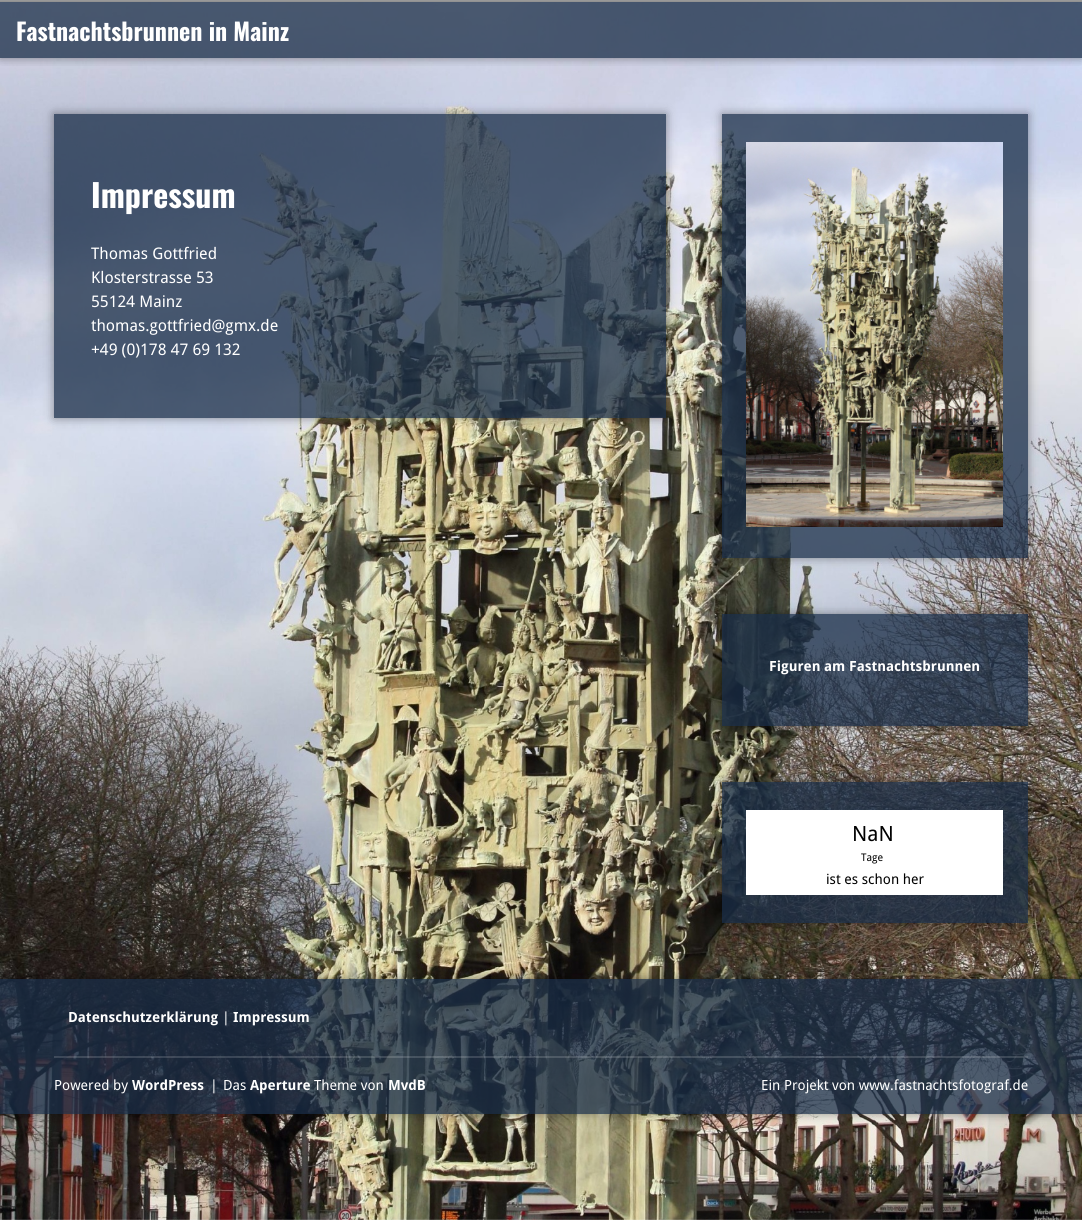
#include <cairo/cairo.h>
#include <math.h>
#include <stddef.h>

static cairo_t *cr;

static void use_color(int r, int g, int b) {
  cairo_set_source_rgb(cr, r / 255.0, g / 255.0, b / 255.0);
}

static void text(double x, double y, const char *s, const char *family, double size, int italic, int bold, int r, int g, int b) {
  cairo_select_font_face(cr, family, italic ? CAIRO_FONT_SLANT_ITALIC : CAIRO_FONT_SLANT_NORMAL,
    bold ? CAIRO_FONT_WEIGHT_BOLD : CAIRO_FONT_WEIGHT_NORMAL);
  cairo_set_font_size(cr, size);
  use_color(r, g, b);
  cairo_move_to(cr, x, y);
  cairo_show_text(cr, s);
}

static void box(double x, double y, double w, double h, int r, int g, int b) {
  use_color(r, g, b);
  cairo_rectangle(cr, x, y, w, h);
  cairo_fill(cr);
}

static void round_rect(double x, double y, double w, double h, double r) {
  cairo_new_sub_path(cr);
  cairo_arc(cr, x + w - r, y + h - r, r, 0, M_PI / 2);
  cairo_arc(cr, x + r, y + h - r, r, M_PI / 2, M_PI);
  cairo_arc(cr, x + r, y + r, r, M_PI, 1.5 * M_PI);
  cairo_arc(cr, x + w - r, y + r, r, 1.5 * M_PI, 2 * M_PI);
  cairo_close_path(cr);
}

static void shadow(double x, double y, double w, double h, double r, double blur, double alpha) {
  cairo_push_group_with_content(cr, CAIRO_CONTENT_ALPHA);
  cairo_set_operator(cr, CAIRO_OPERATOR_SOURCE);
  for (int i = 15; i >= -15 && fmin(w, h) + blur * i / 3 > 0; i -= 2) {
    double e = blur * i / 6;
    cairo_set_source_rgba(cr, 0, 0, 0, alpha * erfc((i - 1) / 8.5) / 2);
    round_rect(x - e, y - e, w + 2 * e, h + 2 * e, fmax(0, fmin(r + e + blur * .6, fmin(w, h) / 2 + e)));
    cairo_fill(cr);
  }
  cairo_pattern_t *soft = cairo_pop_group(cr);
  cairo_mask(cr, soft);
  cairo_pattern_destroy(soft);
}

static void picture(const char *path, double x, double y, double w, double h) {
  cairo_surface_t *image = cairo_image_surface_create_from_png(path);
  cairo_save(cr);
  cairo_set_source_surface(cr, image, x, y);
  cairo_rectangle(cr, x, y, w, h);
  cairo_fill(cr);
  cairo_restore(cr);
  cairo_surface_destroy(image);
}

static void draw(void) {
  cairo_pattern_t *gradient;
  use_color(255, 255, 255);
  cairo_paint(cr);
  picture("img_01.png", 0, 2, 1082, 1218);
  cairo_save(cr);
  cairo_rectangle(cr, 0, 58, 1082, 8);
  cairo_clip(cr);
  use_color(0, 0, 0);
  shadow(0, 2, 1082, 56, 0, 5, 0.4);
  cairo_restore(cr);
  gradient = cairo_pattern_create_linear(541, 0, 541, 24);
  cairo_pattern_add_color_stop_rgba(gradient, 0, 0.533, 0.533, 0.533, 1);
  cairo_pattern_add_color_stop_rgba(gradient, 1, 0, 0, 0, 1);
  cairo_set_source(cr, gradient);
  cairo_pattern_destroy(gradient);
  cairo_rectangle(cr, 0, 0, 1082, 2);
  cairo_fill(cr);
  cairo_set_source_rgba(cr, 1, 1, 1, 0.08);
  cairo_rectangle(cr, 0, 0, 1082, 2);
  cairo_fill(cr);
  cairo_rectangle(cr, 0, 0, 1082, 2);
  cairo_fill(cr);
  cairo_set_source_rgba(cr, 0.094, 0.173, 0.278, 0.75);
  cairo_rectangle(cr, 0, 2, 1082, 56);
  cairo_fill(cr);
  cairo_save(cr);
  cairo_set_fill_rule(cr, CAIRO_FILL_RULE_EVEN_ODD);
  cairo_new_path(cr);
  cairo_move_to(cr, 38, 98);
  cairo_line_to(cr, 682, 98);
  cairo_line_to(cr, 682, 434);
  cairo_line_to(cr, 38, 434);
  cairo_close_path(cr);
  cairo_move_to(cr, 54, 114);
  cairo_line_to(cr, 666, 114);
  cairo_line_to(cr, 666, 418);
  cairo_line_to(cr, 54, 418);
  cairo_close_path(cr);
  cairo_clip(cr);
  use_color(0, 0, 0);
  shadow(54, 114, 612, 304, 0, 5, 0.4);
  cairo_restore(cr);
  cairo_rectangle(cr, 54, 114, 612, 304);
  cairo_fill(cr);
  cairo_save(cr);
  cairo_set_fill_rule(cr, CAIRO_FILL_RULE_EVEN_ODD);
  cairo_new_path(cr);
  cairo_move_to(cr, 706, 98);
  cairo_line_to(cr, 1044, 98);
  cairo_line_to(cr, 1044, 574);
  cairo_line_to(cr, 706, 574);
  cairo_close_path(cr);
  cairo_move_to(cr, 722, 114);
  cairo_line_to(cr, 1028, 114);
  cairo_line_to(cr, 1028, 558);
  cairo_line_to(cr, 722, 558);
  cairo_close_path(cr);
  cairo_clip(cr);
  use_color(0, 0, 0);
  shadow(722, 114, 306, 444, 0, 5, 0.4);
  cairo_restore(cr);
  cairo_rectangle(cr, 722, 114, 306, 444);
  cairo_fill(cr);
  picture("img_02.png", 746, 142, 257, 385);
  cairo_save(cr);
  cairo_set_fill_rule(cr, CAIRO_FILL_RULE_EVEN_ODD);
  cairo_new_path(cr);
  cairo_move_to(cr, 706, 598);
  cairo_line_to(cr, 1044, 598);
  cairo_line_to(cr, 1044, 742);
  cairo_line_to(cr, 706, 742);
  cairo_close_path(cr);
  cairo_move_to(cr, 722, 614);
  cairo_line_to(cr, 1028, 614);
  cairo_line_to(cr, 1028, 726);
  cairo_line_to(cr, 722, 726);
  cairo_close_path(cr);
  cairo_clip(cr);
  use_color(0, 0, 0);
  shadow(722, 614, 306, 112, 0, 5, 0.4);
  cairo_restore(cr);
  cairo_rectangle(cr, 722, 614, 306, 112);
  cairo_fill(cr);
  cairo_save(cr);
  cairo_set_fill_rule(cr, CAIRO_FILL_RULE_EVEN_ODD);
  cairo_new_path(cr);
  cairo_move_to(cr, 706, 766);
  cairo_line_to(cr, 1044, 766);
  cairo_line_to(cr, 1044, 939);
  cairo_line_to(cr, 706, 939);
  cairo_close_path(cr);
  cairo_move_to(cr, 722, 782);
  cairo_line_to(cr, 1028, 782);
  cairo_line_to(cr, 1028, 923);
  cairo_line_to(cr, 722, 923);
  cairo_close_path(cr);
  cairo_clip(cr);
  use_color(0, 0, 0);
  shadow(722, 782, 306, 141, 0, 5, 0.4);
  cairo_restore(cr);
  cairo_rectangle(cr, 722, 782, 306, 141);
  cairo_fill(cr);
  box(746, 810, 257, 85, 255, 255, 255);
  cairo_save(cr);
  cairo_set_fill_rule(cr, CAIRO_FILL_RULE_EVEN_ODD);
  cairo_new_path(cr);
  cairo_move_to(cr, 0, 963);
  cairo_line_to(cr, 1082, 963);
  cairo_line_to(cr, 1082, 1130);
  cairo_line_to(cr, 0, 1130);
  cairo_close_path(cr);
  cairo_move_to(cr, 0, 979);
  cairo_line_to(cr, 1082, 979);
  cairo_line_to(cr, 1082, 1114);
  cairo_line_to(cr, 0, 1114);
  cairo_close_path(cr);
  cairo_clip(cr);
  use_color(0, 0, 0);
  shadow(0, 979, 1082, 135, 0, 5, 0.4);
  cairo_restore(cr);
  cairo_set_source_rgba(cr, 0.094, 0.173, 0.278, 0.75);
  cairo_rectangle(cr, 0, 979, 1082, 135);
  cairo_fill(cr);
  cairo_set_source_rgba(cr, 1, 1, 1, 0.15);
  cairo_rectangle(cr, 54, 1056, 974, 2);
  cairo_fill(cr);
  text(16, 41, "Fastnachtsbrunnen in Mainz", "Oswald", 24, 0, 1, 255, 255, 255);
  text(91, 208, "Impressum", "Oswald", 32, 0, 1, 255, 255, 255);
  text(91, 259, "Thomas Gottfried", "Droid Sans", 16, 0, 0, 255, 255, 255);
  text(91, 283, "Klosterstrasse 53", "Droid Sans", 16, 0, 0, 255, 255, 255);
  text(91, 307, "55124 Mainz", "Droid Sans", 16, 0, 0, 255, 255, 255);
  text(91, 331, "thomas.gottfried@gmx.de", "Droid Sans", 16, 0, 0, 255, 255, 255);
  text(91, 355, "+49 (0)178 47 69 132", "Droid Sans", 16, 0, 0, 255, 255, 255);
  text(769, 671, "Figuren am Fastnachtsbrunnen", "Droid Sans", 14, 0, 1, 255, 255, 255);
  text(852, 841, "NaN", "Droid Sans", 21, 0, 0, 0, 0, 0);
  text(861, 861, "Tage", "Droid Sans", 10.5, 0, 0, 0, 0, 0);
  text(826, 884, "ist es schon her", "Droid Sans", 14, 0, 0, 0, 0, 0);
  text(68, 1022, "Datenschutzerklärung", "Droid Sans", 14, 0, 1, 255, 255, 255);
  text(222, 1022, "|", "Droid Sans", 14, 0, 0, 255, 255, 255);
  text(233, 1022, "Impressum", "Droid Sans", 14, 0, 1, 255, 255, 255);
  text(54, 1090, "Powered by", "Droid Sans", 14, 0, 0, 255, 255, 255);
  text(132, 1090, "WordPress", "Droid Sans", 14, 0, 1, 255, 255, 255);
  text(210, 1090, "|", "Droid Sans", 14, 0, 0, 255, 255, 255);
  text(223, 1090, "Das", "Droid Sans", 14, 0, 0, 255, 255, 255);
  text(250, 1090, "Aperture", "Droid Sans", 14, 0, 1, 255, 255, 255);
  text(314, 1090, "Theme von", "Droid Sans", 14, 0, 0, 255, 255, 255);
  text(388, 1090, "MvdB", "Droid Sans", 14, 0, 1, 255, 255, 255);
  text(761, 1090, "Ein Projekt von www.fastnachtsfotograf.de", "Droid Sans", 14, 0, 0, 255, 255, 255);
}

int main(void) {
  cairo_surface_t *surface = cairo_image_surface_create(CAIRO_FORMAT_RGB24, 1082, 1220);
  cr = cairo_create(surface);
  cairo_font_options_t *options = cairo_font_options_create();
  cairo_font_options_set_hint_metrics(options, CAIRO_HINT_METRICS_OFF);
  cairo_font_options_set_hint_style(options, CAIRO_HINT_STYLE_NONE);
  cairo_set_font_options(cr, options);
  cairo_set_miter_limit(cr, 4);
  draw();
  cairo_surface_write_to_png(surface, "out.png");
  cairo_font_options_destroy(options);
  cairo_destroy(cr);
  cairo_surface_destroy(surface);
  return 0;
}
